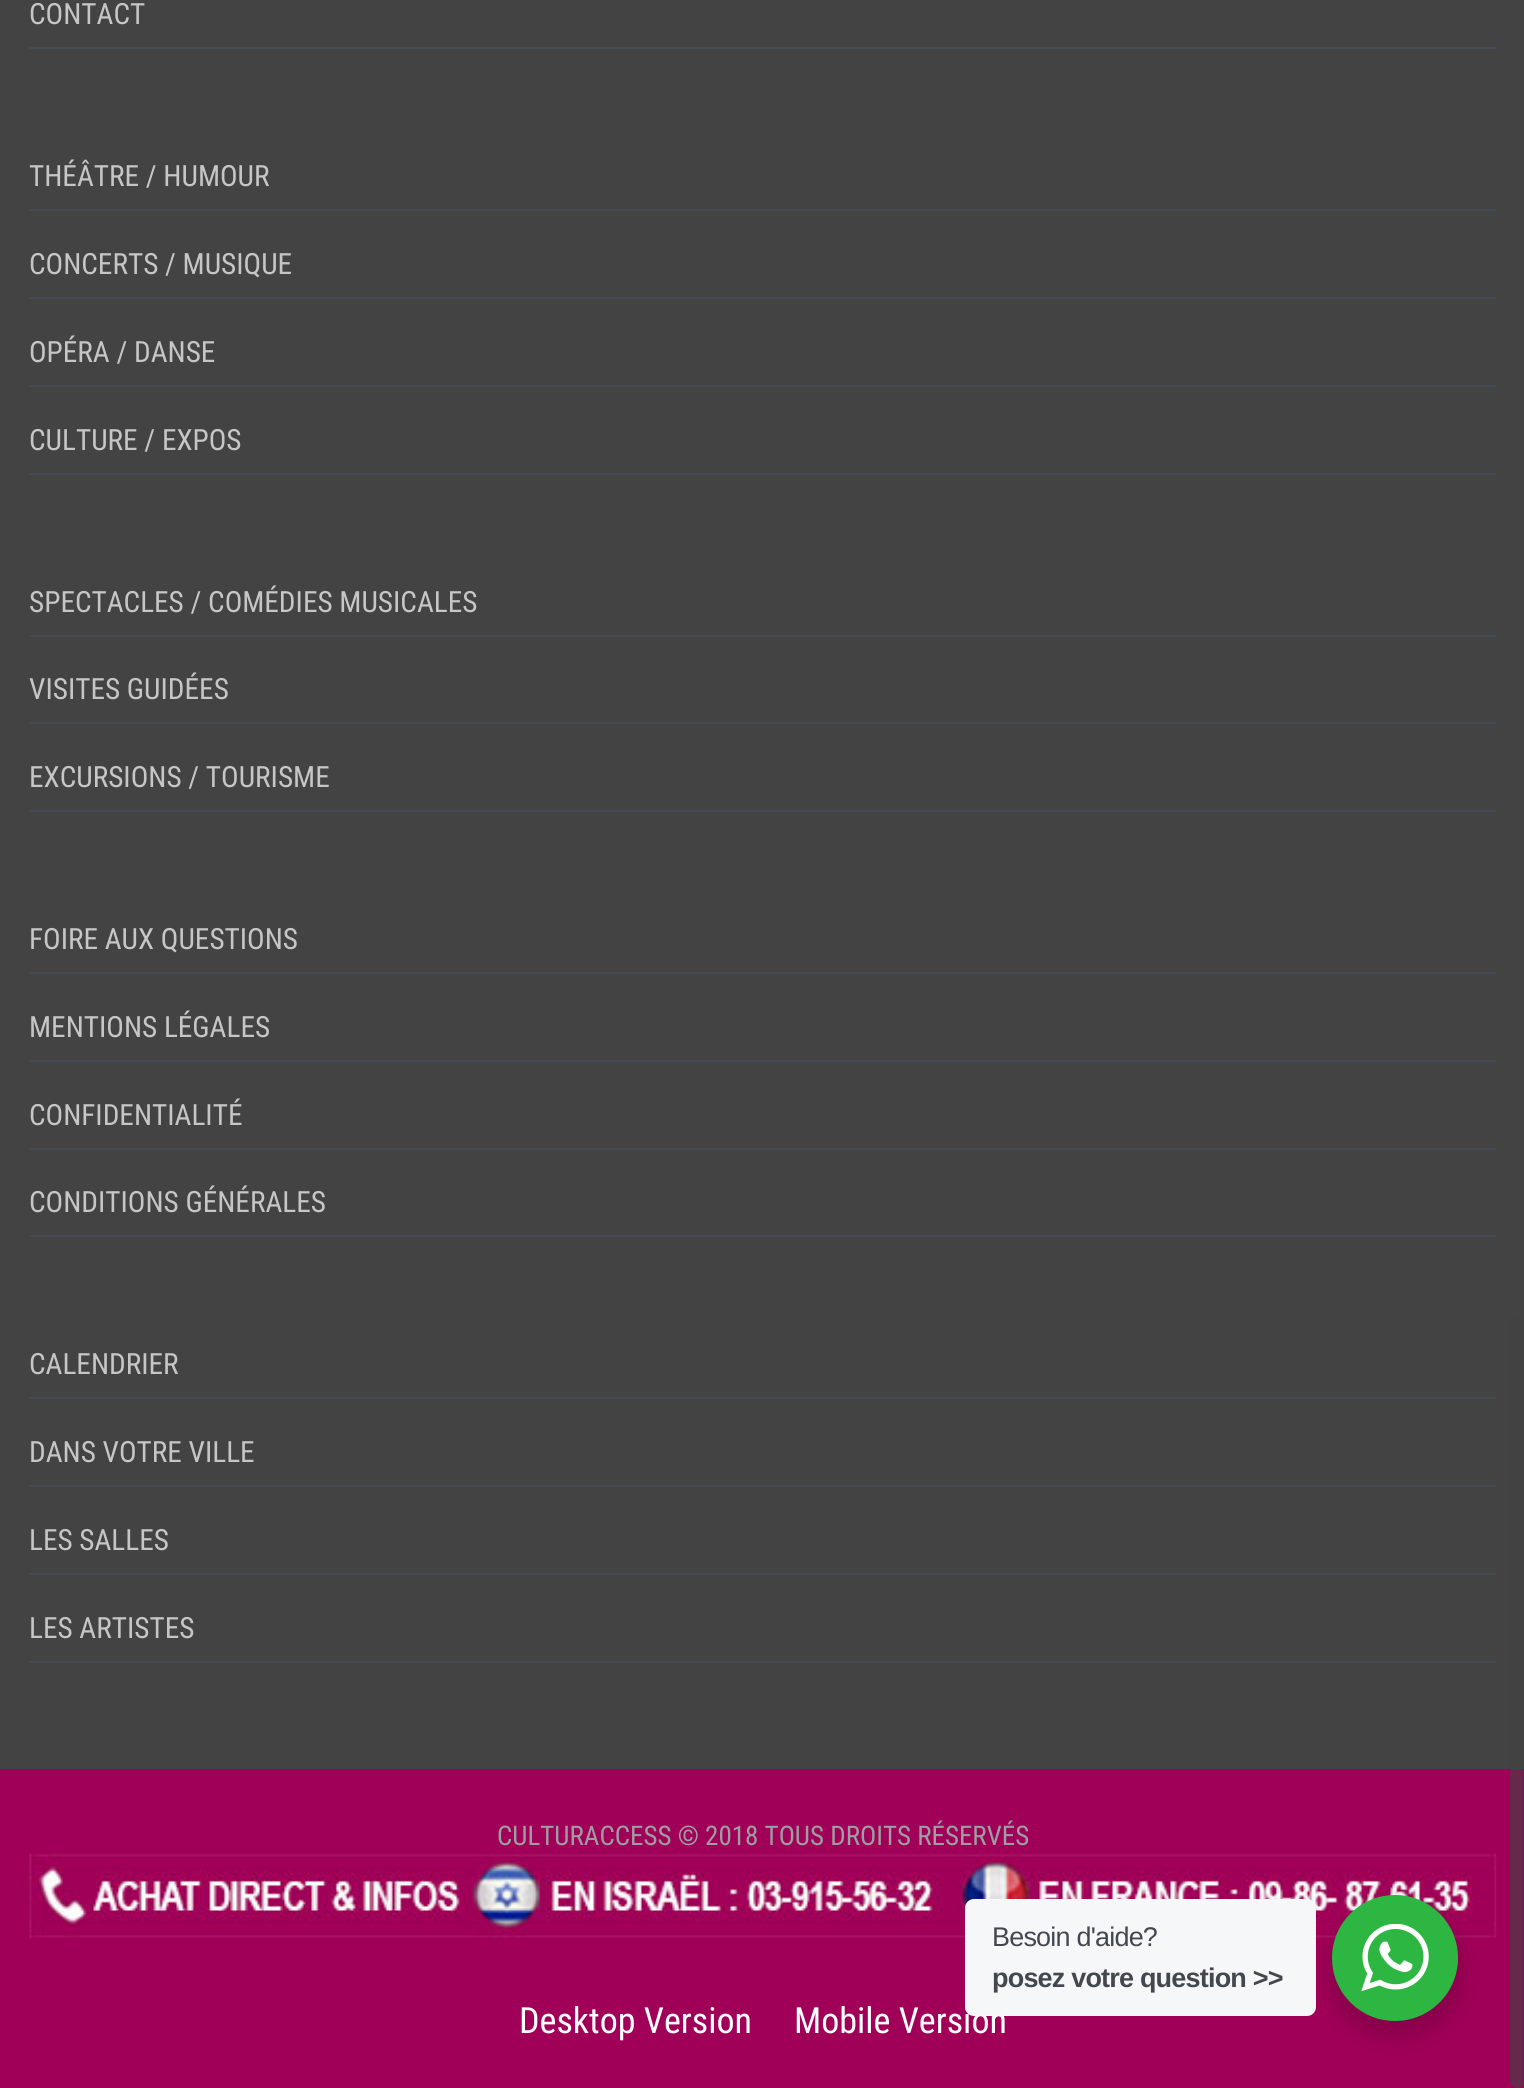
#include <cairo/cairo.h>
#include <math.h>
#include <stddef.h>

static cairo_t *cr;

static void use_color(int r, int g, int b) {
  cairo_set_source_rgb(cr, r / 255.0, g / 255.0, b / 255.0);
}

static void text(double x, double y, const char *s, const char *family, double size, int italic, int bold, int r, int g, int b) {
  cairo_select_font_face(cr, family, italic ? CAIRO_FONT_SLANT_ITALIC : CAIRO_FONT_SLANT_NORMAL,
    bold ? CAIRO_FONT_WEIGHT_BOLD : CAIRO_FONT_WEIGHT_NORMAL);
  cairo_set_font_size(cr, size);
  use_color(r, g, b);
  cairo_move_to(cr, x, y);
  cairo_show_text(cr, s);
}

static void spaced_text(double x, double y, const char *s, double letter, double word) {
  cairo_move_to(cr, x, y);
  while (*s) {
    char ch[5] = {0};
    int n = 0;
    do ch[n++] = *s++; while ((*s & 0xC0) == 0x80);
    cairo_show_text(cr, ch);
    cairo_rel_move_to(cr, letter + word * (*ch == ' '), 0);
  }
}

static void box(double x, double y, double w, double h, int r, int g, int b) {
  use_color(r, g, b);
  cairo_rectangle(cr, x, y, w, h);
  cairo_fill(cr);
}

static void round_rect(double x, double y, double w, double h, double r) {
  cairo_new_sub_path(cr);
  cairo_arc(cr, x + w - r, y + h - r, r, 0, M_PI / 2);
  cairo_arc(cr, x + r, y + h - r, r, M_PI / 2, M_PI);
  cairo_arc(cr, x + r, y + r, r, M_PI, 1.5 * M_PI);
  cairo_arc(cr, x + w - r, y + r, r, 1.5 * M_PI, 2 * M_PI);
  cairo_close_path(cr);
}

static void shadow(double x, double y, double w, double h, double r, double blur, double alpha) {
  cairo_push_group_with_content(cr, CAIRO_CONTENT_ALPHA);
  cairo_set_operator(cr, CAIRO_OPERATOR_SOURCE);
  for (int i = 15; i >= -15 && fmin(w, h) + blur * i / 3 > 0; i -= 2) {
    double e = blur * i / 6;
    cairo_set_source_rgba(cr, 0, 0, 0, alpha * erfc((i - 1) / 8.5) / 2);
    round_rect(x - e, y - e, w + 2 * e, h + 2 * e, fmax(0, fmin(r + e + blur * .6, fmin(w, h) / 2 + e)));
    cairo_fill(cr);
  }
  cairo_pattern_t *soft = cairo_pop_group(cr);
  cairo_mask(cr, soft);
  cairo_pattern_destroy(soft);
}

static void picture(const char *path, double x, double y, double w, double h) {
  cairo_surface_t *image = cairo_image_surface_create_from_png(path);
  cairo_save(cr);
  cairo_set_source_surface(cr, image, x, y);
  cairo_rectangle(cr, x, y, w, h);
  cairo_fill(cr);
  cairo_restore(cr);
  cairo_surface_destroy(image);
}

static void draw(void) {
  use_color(67, 67, 67);
  cairo_paint(cr);
  box(29, 47, 1467, 2, 67, 74, 86);
  box(29, 209, 1467, 2, 67, 74, 86);
  box(29, 297, 1467, 2, 67, 74, 86);
  box(29, 385, 1467, 2, 67, 74, 86);
  box(29, 473, 1467, 2, 67, 74, 86);
  box(29, 635, 1467, 2, 67, 74, 86);
  box(29, 722, 1467, 2, 67, 74, 86);
  box(29, 810, 1467, 2, 67, 74, 86);
  box(29, 972, 1467, 2, 67, 74, 86);
  box(29, 1060, 1467, 2, 67, 74, 86);
  box(29, 1148, 1467, 2, 67, 74, 86);
  box(29, 1235, 1467, 2, 67, 74, 86);
  box(29, 1397, 1467, 2, 67, 74, 86);
  box(29, 1485, 1467, 2, 67, 74, 86);
  box(29, 1573, 1467, 2, 67, 74, 86);
  box(29, 1661, 1467, 2, 67, 74, 86);
  box(0, 1769, 1524, 319, 160, 0, 87);
  picture("img_01.png", 29, 1854, 1468, 84);
  use_color(0, 0, 0);
  shadow(1328, 1904, 135, 135, 67.5, 9, 0.14);
  use_color(45, 183, 66);
  cairo_arc(cr, 1395, 1958, 63, 0, 2 * M_PI);
  cairo_fill(cr);
  picture("img_02.png", 1361, 1924, 68, 67);
  cairo_set_source_rgba(cr, 0.259, 0.259, 0.259, 0.62);
  round_rect(1512, 1316, 11, 770, 5.5);
  cairo_fill(cr);
  round_rect(1511, 1315, 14, 772, 7);
  cairo_stroke(cr);
  text(29, 24, "CONTACT", "Roboto Condensed", 29.25, 0, 0, 198, 198, 198);
  text(29, 186, "THÉÂTRE / HUMOUR", "Roboto Condensed", 29.25, 0, 0, 198, 198, 198);
  text(29, 274, "CONCERTS / MUSIQUE", "Roboto Condensed", 29.25, 0, 0, 198, 198, 198);
  text(29, 362, "OPÉRA / DANSE", "Roboto Condensed", 29.25, 0, 0, 198, 198, 198);
  text(29, 450, "CULTURE / EXPOS", "Roboto Condensed", 29.25, 0, 0, 198, 198, 198);
  text(29, 612, "SPECTACLES / COMÉDIES MUSICALES", "Roboto Condensed", 29.25, 0, 0, 198, 198, 198);
  text(29, 699, "VISITES GUIDÉES", "Roboto Condensed", 29.25, 0, 0, 198, 198, 198);
  text(29, 787, "EXCURSIONS / TOURISME", "Roboto Condensed", 29.25, 0, 0, 198, 198, 198);
  text(29, 949, "FOIRE AUX QUESTIONS", "Roboto Condensed", 29.25, 0, 0, 198, 198, 198);
  text(29, 1037, "MENTIONS LÉGALES", "Roboto Condensed", 29.25, 0, 0, 198, 198, 198);
  text(29, 1125, "CONFIDENTIALITÉ", "Roboto Condensed", 29.25, 0, 0, 198, 198, 198);
  text(29, 1212, "CONDITIONS GÉNÉRALES", "Roboto Condensed", 29.25, 0, 0, 198, 198, 198);
  text(29, 1374, "CALENDRIER", "Roboto Condensed", 29.25, 0, 0, 198, 198, 198);
  text(29, 1462, "DANS VOTRE VILLE", "Roboto Condensed", 29.25, 0, 0, 198, 198, 198);
  text(29, 1550, "LES SALLES", "Roboto Condensed", 29.25, 0, 0, 198, 198, 198);
  text(29, 1638, "LES ARTISTES", "Roboto Condensed", 29.25, 0, 0, 198, 198, 198);
  text(497, 1845, "CULTURACCESS © 2018 TOUS DROITS RÉSERVÉS", "Roboto Condensed", 27, 0, 0, 156, 158, 161);
  text(519, 2033, "Desktop Version", "Roboto Condensed", 36, 0, 0, 255, 255, 255);
  text(794, 2033, "Mobile Version", "Roboto Condensed", 36, 0, 0, 255, 255, 255);
  use_color(245, 247, 249);
  round_rect(965, 1899, 351, 117, 9);
  cairo_fill(cr);
  cairo_select_font_face(cr, "Liberation Sans", CAIRO_FONT_SLANT_NORMAL, CAIRO_FONT_WEIGHT_NORMAL);
  cairo_set_font_size(cr, 27);
  use_color(67, 71, 78);
  spaced_text(992, 1946, "Besoin d'aide?", -0.8, 0);
  cairo_select_font_face(cr, "Liberation Sans", CAIRO_FONT_SLANT_NORMAL, CAIRO_FONT_WEIGHT_BOLD);
  spaced_text(992, 1987, "posez votre question >>", -0.8, 0);
}

int main(void) {
  cairo_surface_t *surface = cairo_image_surface_create(CAIRO_FORMAT_RGB24, 1524, 2088);
  cr = cairo_create(surface);
  cairo_font_options_t *options = cairo_font_options_create();
  cairo_font_options_set_hint_metrics(options, CAIRO_HINT_METRICS_OFF);
  cairo_font_options_set_hint_style(options, CAIRO_HINT_STYLE_NONE);
  cairo_set_font_options(cr, options);
  cairo_set_miter_limit(cr, 4);
  draw();
  cairo_surface_write_to_png(surface, "out.png");
  cairo_font_options_destroy(options);
  cairo_destroy(cr);
  cairo_surface_destroy(surface);
  return 0;
}
